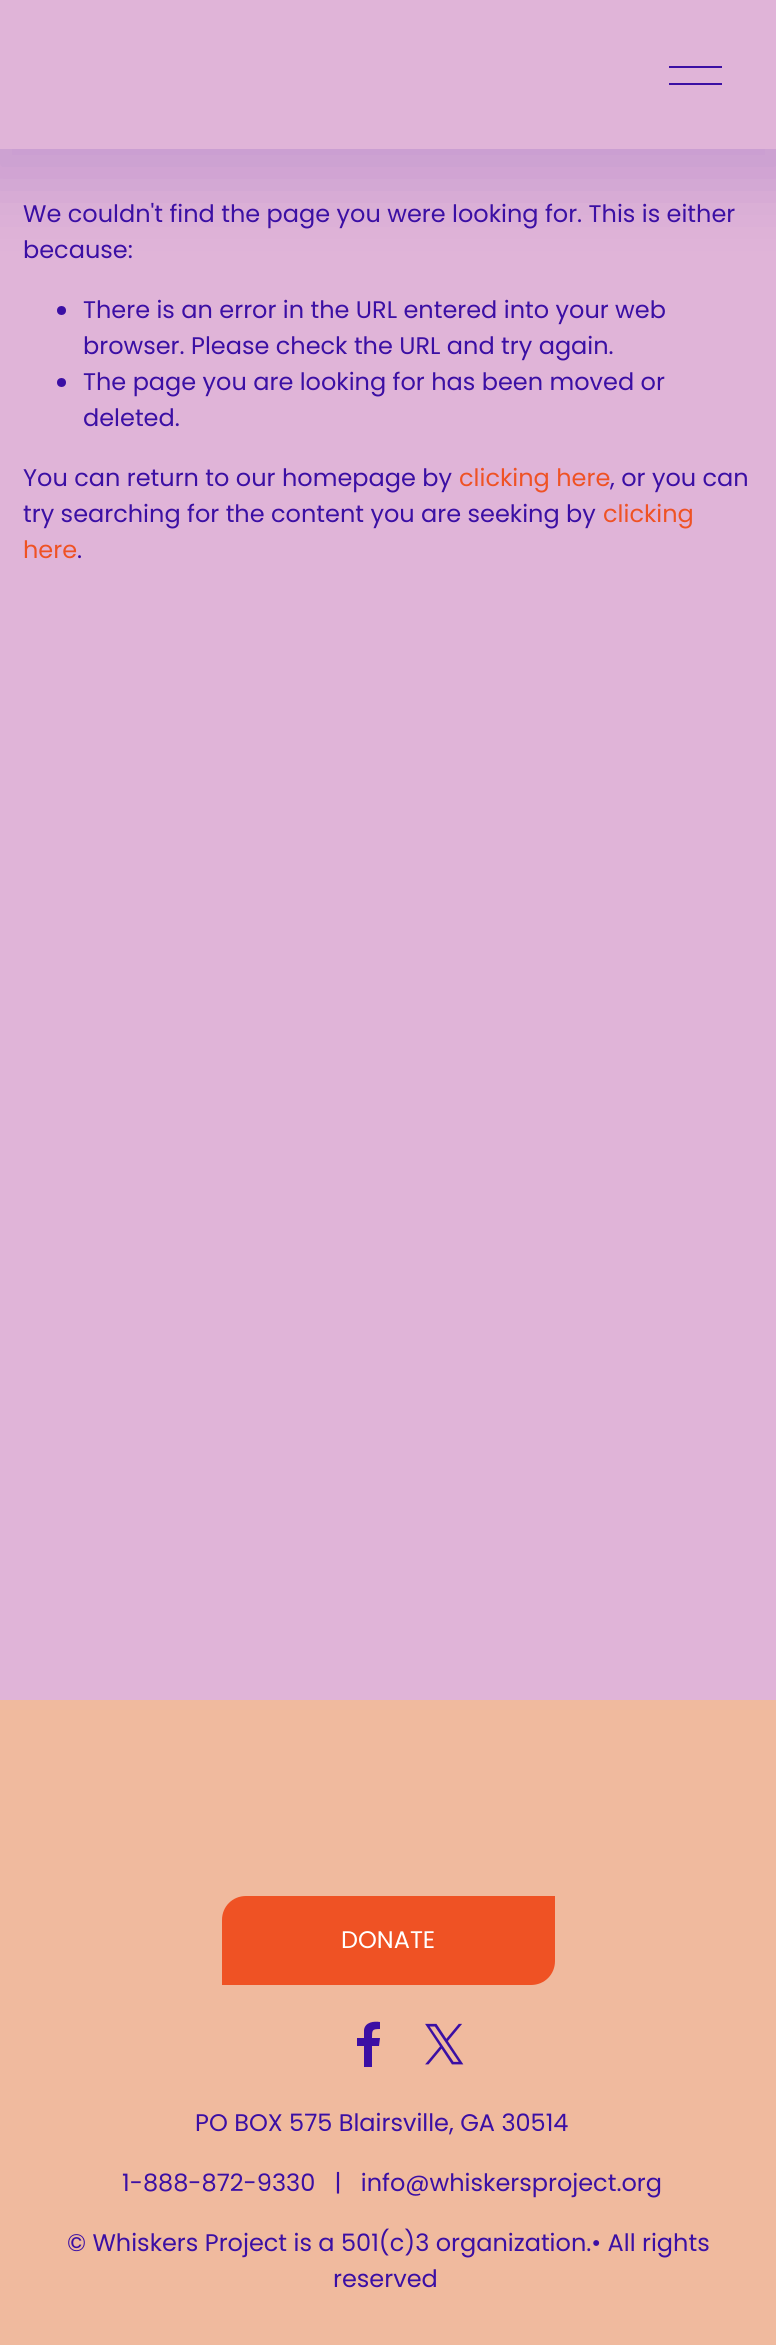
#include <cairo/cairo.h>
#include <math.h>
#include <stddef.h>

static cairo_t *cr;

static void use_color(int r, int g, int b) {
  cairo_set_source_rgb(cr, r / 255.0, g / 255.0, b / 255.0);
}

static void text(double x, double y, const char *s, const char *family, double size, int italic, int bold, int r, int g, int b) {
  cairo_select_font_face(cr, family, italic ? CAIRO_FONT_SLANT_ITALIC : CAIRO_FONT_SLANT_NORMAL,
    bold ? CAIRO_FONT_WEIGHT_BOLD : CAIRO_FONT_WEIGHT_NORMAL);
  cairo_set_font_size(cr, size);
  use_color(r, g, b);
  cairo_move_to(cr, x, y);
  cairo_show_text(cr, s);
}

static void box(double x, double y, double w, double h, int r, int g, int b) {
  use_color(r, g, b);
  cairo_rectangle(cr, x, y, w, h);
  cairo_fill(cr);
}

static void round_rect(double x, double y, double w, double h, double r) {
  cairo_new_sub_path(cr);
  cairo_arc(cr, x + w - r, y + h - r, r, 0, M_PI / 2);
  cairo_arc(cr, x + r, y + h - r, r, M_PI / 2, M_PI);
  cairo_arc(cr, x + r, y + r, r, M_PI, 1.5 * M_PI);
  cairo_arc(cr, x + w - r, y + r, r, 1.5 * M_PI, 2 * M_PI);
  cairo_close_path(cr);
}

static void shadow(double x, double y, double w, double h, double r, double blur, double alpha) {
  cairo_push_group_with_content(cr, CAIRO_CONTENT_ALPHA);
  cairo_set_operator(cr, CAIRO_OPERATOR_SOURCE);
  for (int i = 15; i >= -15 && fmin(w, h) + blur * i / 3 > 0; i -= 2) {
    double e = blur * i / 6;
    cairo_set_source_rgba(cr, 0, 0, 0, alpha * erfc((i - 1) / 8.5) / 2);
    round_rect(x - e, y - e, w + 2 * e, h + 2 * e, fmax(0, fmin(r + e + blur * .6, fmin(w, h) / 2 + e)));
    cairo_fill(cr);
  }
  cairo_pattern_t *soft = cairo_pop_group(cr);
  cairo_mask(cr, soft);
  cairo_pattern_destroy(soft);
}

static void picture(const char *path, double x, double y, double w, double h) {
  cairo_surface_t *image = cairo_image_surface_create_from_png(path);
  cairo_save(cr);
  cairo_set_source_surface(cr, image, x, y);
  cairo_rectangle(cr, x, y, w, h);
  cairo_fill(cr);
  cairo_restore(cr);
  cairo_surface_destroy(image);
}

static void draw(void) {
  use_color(224, 180, 216);
  cairo_paint(cr);
  cairo_save(cr);
  cairo_set_fill_rule(cr, CAIRO_FILL_RULE_EVEN_ODD);
  cairo_new_path(cr);
  cairo_move_to(cr, 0, 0);
  cairo_line_to(cr, 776, 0);
  cairo_line_to(cr, 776, 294);
  cairo_line_to(cr, 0, 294);
  cairo_close_path(cr);
  cairo_move_to(cr, 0, 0);
  cairo_line_to(cr, 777, 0);
  cairo_line_to(cr, 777, 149);
  cairo_line_to(cr, 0, 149);
  cairo_close_path(cr);
  cairo_clip(cr);
  use_color(59, 15, 164);
  shadow(-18, 0, 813, 185, 0, 36, 0.15);
  cairo_restore(cr);
  box(669, 66, 53, 2, 59, 15, 164);
  box(669, 83, 53, 2, 59, 15, 164);
  cairo_arc(cr, 61.5, 310.5, 4.5, 0, 2 * M_PI);
  cairo_fill(cr);
  cairo_arc(cr, 61.5, 382.5, 4.5, 0, 2 * M_PI);
  cairo_fill(cr);
  box(0, 1700, 776, 645, 240, 186, 158);
  use_color(239, 82, 36);
  cairo_new_path(cr);
  cairo_move_to(cr, 246, 1896);
  cairo_line_to(cr, 555, 1896);
  cairo_line_to(cr, 555, 1961);
  cairo_curve_to(cr, 555, 1974.5, 544.5, 1985, 531, 1985);
  cairo_line_to(cr, 222, 1985);
  cairo_line_to(cr, 222, 1920);
  cairo_curve_to(cr, 222, 1906.5, 232.5, 1896, 246, 1896);
  cairo_close_path(cr);
  cairo_fill(cr);
  use_color(59, 15, 164);
  cairo_new_path(cr);
  cairo_move_to(cr, 372, 2067);
  cairo_line_to(cr, 372, 2046);
  cairo_line_to(cr, 379, 2046);
  cairo_line_to(cr, 380, 2038);
  cairo_line_to(cr, 372, 2038);
  cairo_curve_to(cr, 372, 2030, 372, 2029, 380, 2029);
  cairo_line_to(cr, 380, 2022);
  cairo_curve_to(cr, 374, 2021, 365, 2022, 364, 2030);
  cairo_line_to(cr, 364, 2038);
  cairo_line_to(cr, 357, 2038);
  cairo_line_to(cr, 357, 2046);
  cairo_line_to(cr, 364, 2046);
  cairo_line_to(cr, 364, 2067);
  cairo_close_path(cr);
  cairo_fill(cr);
  picture("img_01.png", 425, 2023, 39, 42);
  text(23, 222, "We couldn't find the page you were looking for. This is either", "Poppins", 24, 0, 0, 59, 15, 164);
  text(23, 258, "because:", "Poppins", 24, 0, 0, 59, 15, 164);
  text(83, 318, "There is an error in the URL entered into your web", "Poppins", 24, 0, 0, 59, 15, 164);
  text(83, 354, "browser. Please check the URL and try again.", "Poppins", 24, 0, 0, 59, 15, 164);
  text(83, 390, "The page you are looking for has been moved or", "Poppins", 24, 0, 0, 59, 15, 164);
  text(83, 426, "deleted.", "Poppins", 24, 0, 0, 59, 15, 164);
  text(23, 486, "You can return to our homepage by", "Poppins", 24, 0, 0, 59, 15, 164);
  text(459, 486, "clicking here", "Poppins", 24, 0, 0, 239, 82, 36);
  text(610, 486, ", or you can", "Poppins", 24, 0, 0, 59, 15, 164);
  text(23, 522, "try searching for the content you are seeking by", "Poppins", 24, 0, 0, 59, 15, 164);
  text(603, 522, "clicking", "Poppins", 24, 0, 0, 239, 82, 36);
  text(23, 558, "here", "Poppins", 24, 0, 0, 239, 82, 36);
  text(77, 558, ".", "Poppins", 24, 0, 0, 59, 15, 164);
  text(341, 1948, "DONATE", "Poppins", 24, 0, 0, 255, 255, 255);
  text(195, 2131, "PO BOX 575 Blairsville, GA 30514", "Poppins", 24, 0, 0, 59, 15, 164);
  text(122, 2191, "1-888-872-9330   |   info@whiskersproject.org", "Poppins", 24, 0, 0, 59, 15, 164);
  text(67, 2251, "© Whiskers Project is a 501(c)3 organization.• All rights", "Poppins", 24, 0, 0, 59, 15, 164);
  text(333, 2287, "reserved", "Poppins", 24, 0, 0, 59, 15, 164);
}

int main(void) {
  cairo_surface_t *surface = cairo_image_surface_create(CAIRO_FORMAT_RGB24, 776, 2345);
  cr = cairo_create(surface);
  cairo_font_options_t *options = cairo_font_options_create();
  cairo_font_options_set_hint_metrics(options, CAIRO_HINT_METRICS_OFF);
  cairo_font_options_set_hint_style(options, CAIRO_HINT_STYLE_NONE);
  cairo_set_font_options(cr, options);
  cairo_set_miter_limit(cr, 4);
  draw();
  cairo_surface_write_to_png(surface, "out.png");
  cairo_font_options_destroy(options);
  cairo_destroy(cr);
  cairo_surface_destroy(surface);
  return 0;
}
